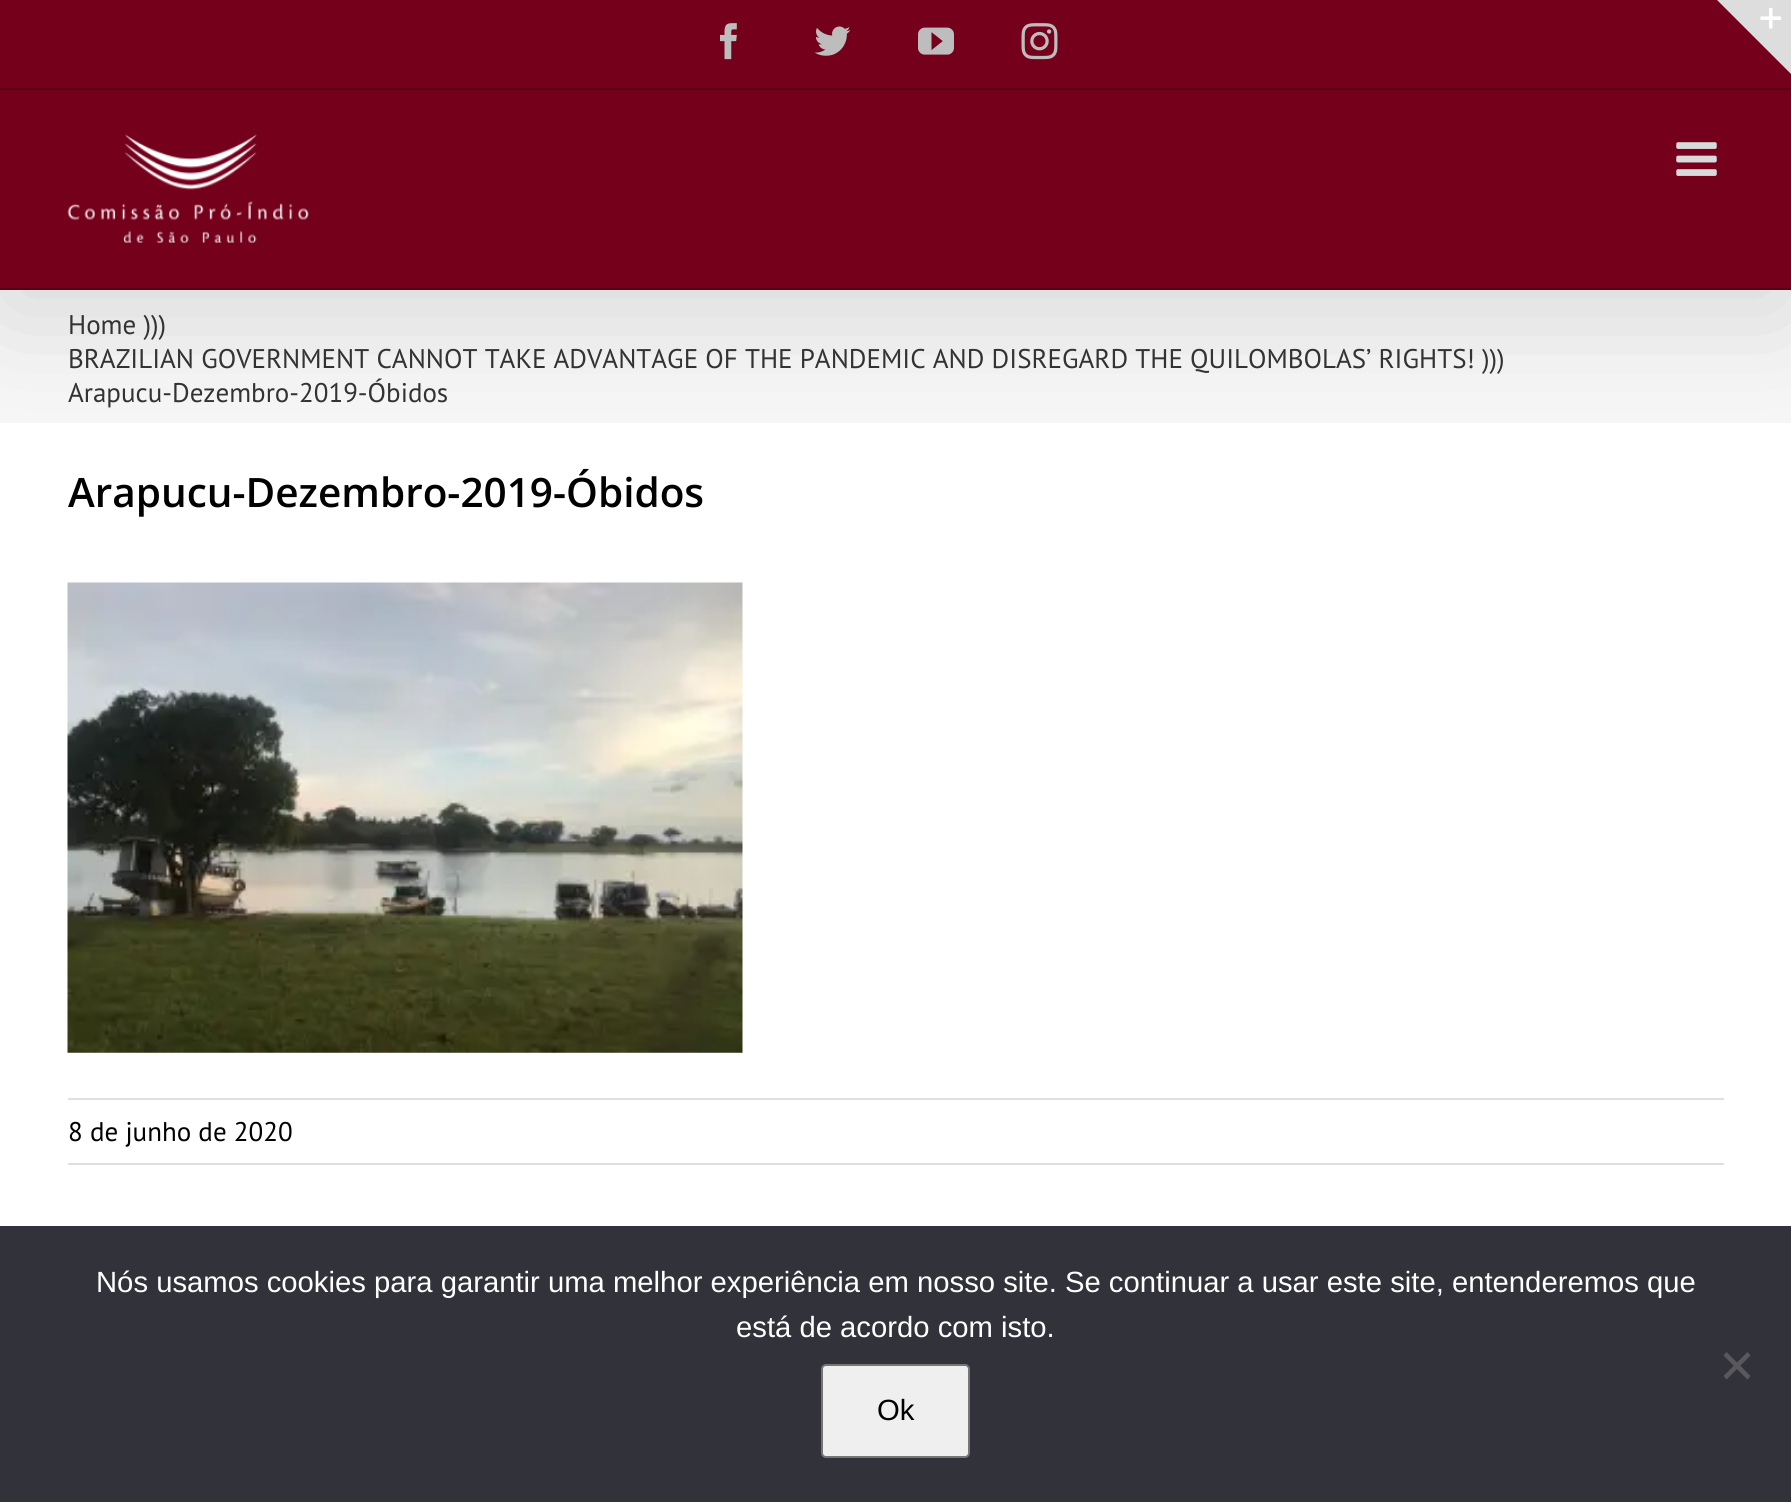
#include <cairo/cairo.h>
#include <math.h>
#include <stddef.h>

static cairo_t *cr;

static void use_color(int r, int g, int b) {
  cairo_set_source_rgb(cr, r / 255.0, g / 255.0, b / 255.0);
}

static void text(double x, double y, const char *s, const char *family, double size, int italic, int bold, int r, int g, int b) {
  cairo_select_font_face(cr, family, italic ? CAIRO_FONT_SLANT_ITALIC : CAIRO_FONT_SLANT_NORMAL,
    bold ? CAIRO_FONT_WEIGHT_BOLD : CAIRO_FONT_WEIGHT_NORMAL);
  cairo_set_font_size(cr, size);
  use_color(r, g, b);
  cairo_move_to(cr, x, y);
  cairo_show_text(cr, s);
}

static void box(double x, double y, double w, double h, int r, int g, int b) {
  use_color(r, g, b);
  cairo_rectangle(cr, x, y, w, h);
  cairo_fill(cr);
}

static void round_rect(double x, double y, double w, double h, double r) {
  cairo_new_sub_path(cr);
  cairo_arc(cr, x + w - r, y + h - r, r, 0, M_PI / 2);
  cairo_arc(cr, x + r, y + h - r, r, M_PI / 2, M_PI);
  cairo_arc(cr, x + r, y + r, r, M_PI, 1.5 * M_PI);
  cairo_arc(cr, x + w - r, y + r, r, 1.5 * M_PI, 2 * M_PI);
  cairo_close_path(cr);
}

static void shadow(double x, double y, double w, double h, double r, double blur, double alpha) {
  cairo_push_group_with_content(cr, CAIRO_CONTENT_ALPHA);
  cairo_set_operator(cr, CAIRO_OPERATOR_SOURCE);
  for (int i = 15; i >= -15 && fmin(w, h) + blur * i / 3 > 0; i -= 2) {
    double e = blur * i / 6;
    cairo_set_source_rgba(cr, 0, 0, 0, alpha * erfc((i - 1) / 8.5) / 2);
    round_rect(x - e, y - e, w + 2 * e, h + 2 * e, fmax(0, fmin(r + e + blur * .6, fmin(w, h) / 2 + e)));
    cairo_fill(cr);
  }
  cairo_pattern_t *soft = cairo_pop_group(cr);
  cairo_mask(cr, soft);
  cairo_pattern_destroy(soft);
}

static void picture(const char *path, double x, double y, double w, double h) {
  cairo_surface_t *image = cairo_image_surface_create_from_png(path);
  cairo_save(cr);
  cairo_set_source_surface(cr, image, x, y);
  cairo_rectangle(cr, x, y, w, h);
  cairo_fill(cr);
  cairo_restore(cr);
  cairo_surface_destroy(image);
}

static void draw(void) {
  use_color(255, 255, 255);
  cairo_paint(cr);
  box(0, 290, 1791, 133, 246, 246, 246);
  use_color(0, 0, 0);
  shadow(5, 20, 1782, 288, 0, 56, 0.14);
  box(0, 0, 1791, 88, 116, 0, 28);
  box(0, 88, 1791, 2, 89, 0, 19);
  picture("img_01.png", 720, 23, 17, 37);
  picture("img_02.png", 814, 26, 37, 30);
  picture("img_03.png", 918, 27, 36, 28);
  picture("img_04.png", 1021, 23, 37, 37);
  box(0, 90, 1791, 198, 116, 0, 28);
  box(0, 288, 1791, 2, 89, 0, 19);
  picture("img_05.png", 67, 134, 242, 109);
  picture("img_06.png", 1676, 142, 41, 34);
  use_color(221, 221, 221);
  cairo_new_path(cr);
  cairo_move_to(cr, 1710, -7);
  cairo_line_to(cr, 1791, -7);
  cairo_line_to(cr, 1791, 74);
  cairo_close_path(cr);
  cairo_fill(cr);
  picture("img_07.png", 1760, 7, 22, 22);
  picture("img_08.png", 67, 582, 676, 471);
  box(68, 1098, 1656, 2, 224, 222, 222);
  box(68, 1163, 1656, 2, 224, 222, 222);
  box(0, 1226, 1791, 276, 50, 50, 58);
  use_color(89, 89, 93);
  cairo_new_path(cr);
  cairo_move_to(cr, 1747.5, 1352);
  cairo_line_to(cr, 1750.5, 1355.5);
  cairo_line_to(cr, 1726.5, 1379.5);
  cairo_line_to(cr, 1723.5, 1376);
  cairo_close_path(cr);
  cairo_fill(cr);
  cairo_new_path(cr);
  cairo_move_to(cr, 1723.5, 1355.5);
  cairo_line_to(cr, 1726.5, 1352);
  cairo_line_to(cr, 1750.5, 1376);
  cairo_line_to(cr, 1747.5, 1379.5);
  cairo_close_path(cr);
  cairo_fill(cr);
  use_color(239, 239, 239);
  round_rect(822, 1365, 147, 92, 4);
  cairo_fill_preserve(cr);
  use_color(118, 118, 118);
  cairo_stroke(cr);
  text(68, 334, "Home )))", "PT Sans", 27, 0, 0, 51, 51, 51);
  text(68, 368, "BRAZILIAN GOVERNMENT CANNOT TAKE ADVANTAGE OF THE PANDEMIC AND DISREGARD THE QUILOMBOLAS’ RIGHTS! )))", "PT Sans", 27, 0, 0, 51, 51, 51);
  text(68, 402, "Arapucu-Dezembro-2019-Óbidos", "PT Sans", 27, 0, 0, 51, 51, 51);
  text(68, 507, "Arapucu-Dezembro-2019-Óbidos", "Open Sans SemiBold", 40.5, 0, 0, 0, 0, 0);
  text(68, 1141, "8 de junho de 2020", "PT Sans", 27, 0, 0, 0, 0, 0);
  text(96, 1292, "Nós usamos cookies para garantir uma melhor experiência em nosso site. Se continuar a usar este site, entenderemos que", "Liberation Sans", 29.25, 0, 0, 255, 255, 255);
  text(736, 1337, "está de acordo com isto.", "Liberation Sans", 29.25, 0, 0, 255, 255, 255);
  text(877, 1420, "Ok", "Liberation Sans", 29.25, 0, 0, 0, 0, 0);
}

int main(void) {
  cairo_surface_t *surface = cairo_image_surface_create(CAIRO_FORMAT_RGB24, 1791, 1502);
  cr = cairo_create(surface);
  cairo_font_options_t *options = cairo_font_options_create();
  cairo_font_options_set_hint_metrics(options, CAIRO_HINT_METRICS_OFF);
  cairo_font_options_set_hint_style(options, CAIRO_HINT_STYLE_NONE);
  cairo_set_font_options(cr, options);
  cairo_set_miter_limit(cr, 4);
  draw();
  cairo_surface_write_to_png(surface, "out.png");
  cairo_font_options_destroy(options);
  cairo_destroy(cr);
  cairo_surface_destroy(surface);
  return 0;
}
